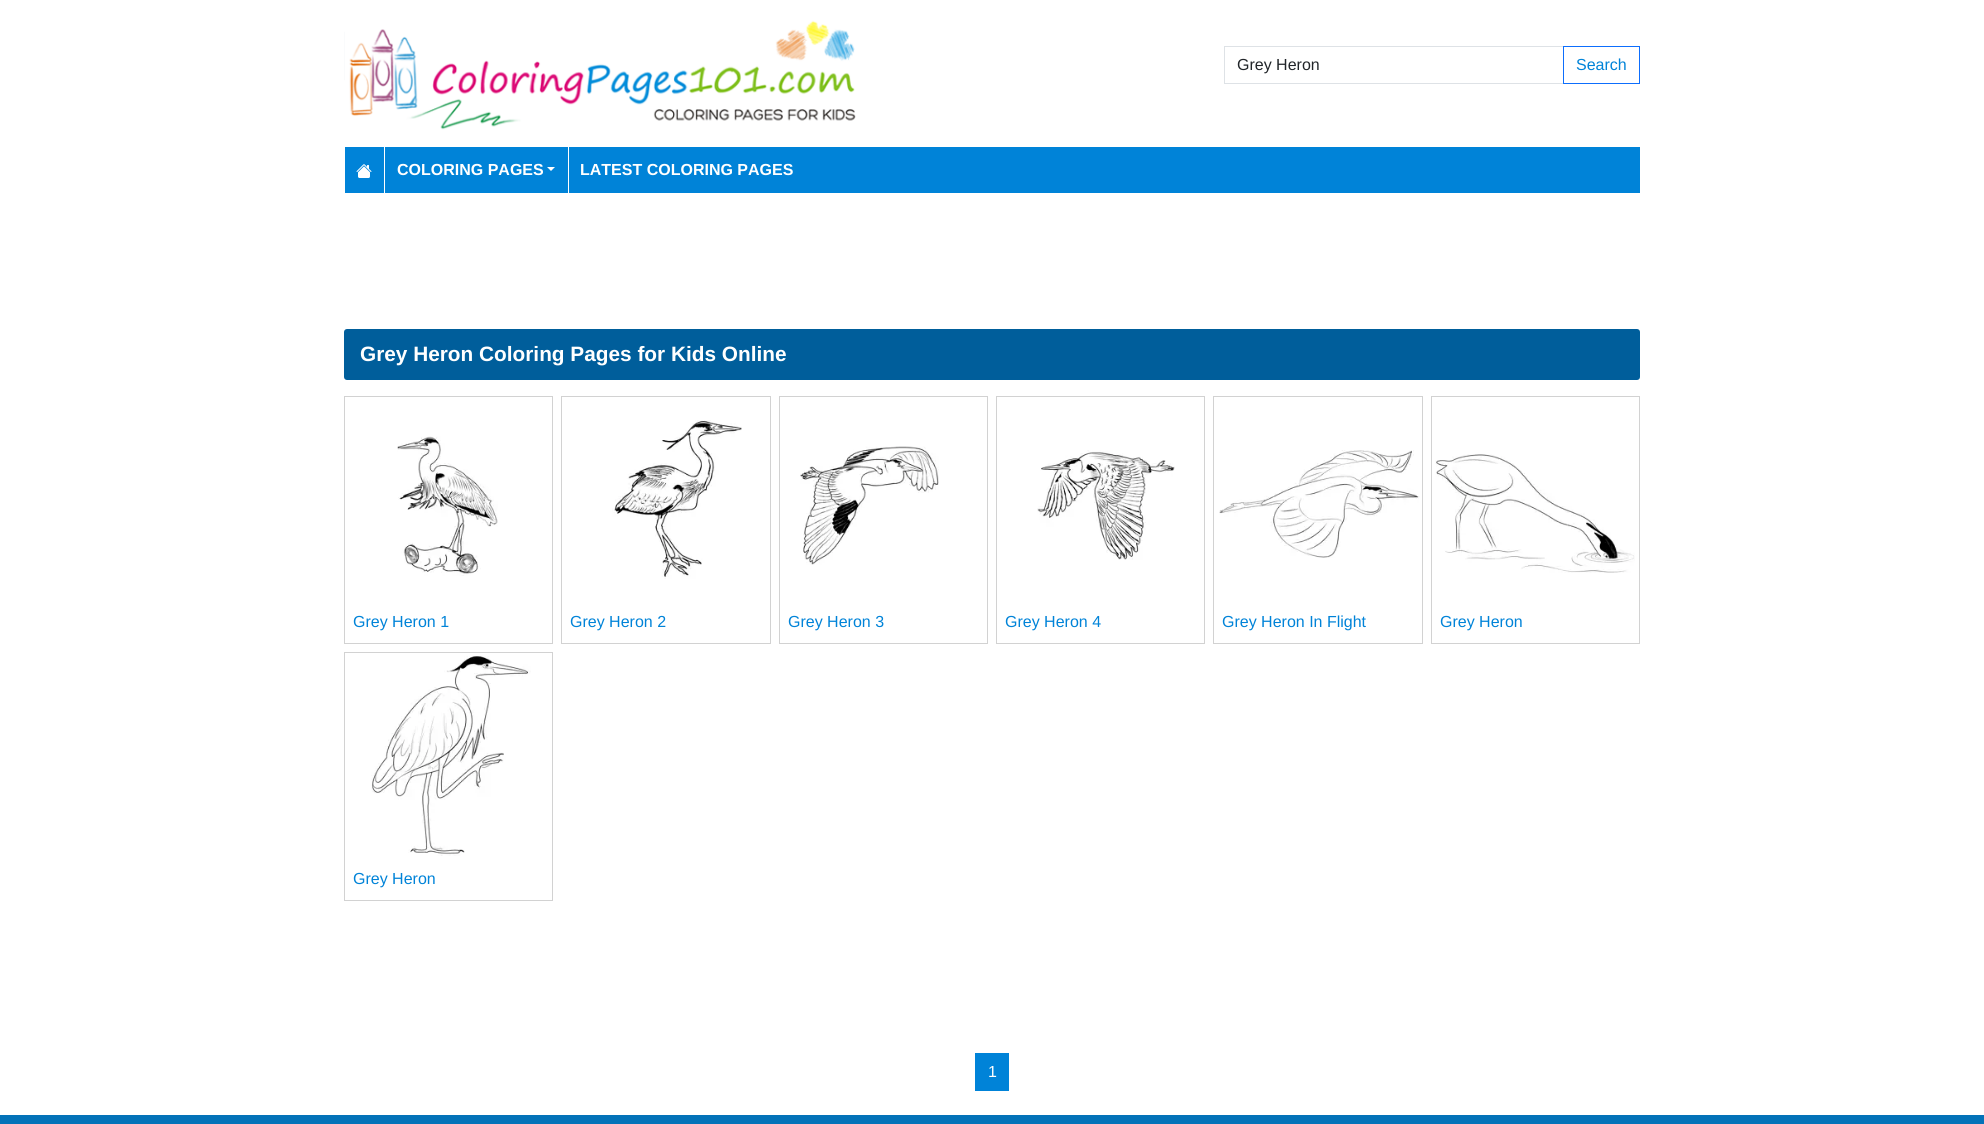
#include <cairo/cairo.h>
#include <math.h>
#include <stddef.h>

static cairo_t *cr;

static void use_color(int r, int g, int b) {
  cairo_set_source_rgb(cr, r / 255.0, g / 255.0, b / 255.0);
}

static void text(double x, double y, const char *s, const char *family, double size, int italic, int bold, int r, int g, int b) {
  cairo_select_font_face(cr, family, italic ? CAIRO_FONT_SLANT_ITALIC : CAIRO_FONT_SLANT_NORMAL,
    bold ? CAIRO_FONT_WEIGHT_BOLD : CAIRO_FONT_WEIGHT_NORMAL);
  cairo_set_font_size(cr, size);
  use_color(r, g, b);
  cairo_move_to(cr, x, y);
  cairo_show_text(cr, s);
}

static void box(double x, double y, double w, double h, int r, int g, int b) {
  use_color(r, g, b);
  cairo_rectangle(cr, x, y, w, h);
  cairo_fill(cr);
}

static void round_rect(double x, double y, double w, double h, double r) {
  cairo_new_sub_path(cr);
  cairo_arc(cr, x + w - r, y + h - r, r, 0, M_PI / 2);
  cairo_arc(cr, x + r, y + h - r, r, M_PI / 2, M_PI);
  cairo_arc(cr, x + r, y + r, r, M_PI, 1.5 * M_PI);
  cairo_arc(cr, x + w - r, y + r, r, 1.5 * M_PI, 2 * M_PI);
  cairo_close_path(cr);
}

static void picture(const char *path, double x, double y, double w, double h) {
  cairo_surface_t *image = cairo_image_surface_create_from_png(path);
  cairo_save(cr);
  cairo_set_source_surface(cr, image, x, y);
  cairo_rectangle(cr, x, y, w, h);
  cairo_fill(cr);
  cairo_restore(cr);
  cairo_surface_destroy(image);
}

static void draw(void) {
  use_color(255, 255, 255);
  cairo_paint(cr);
  picture("img_01.png", 344, 20, 512, 110);
  cairo_rectangle(cr, 1224.5, 46.5, 339, 37);
  use_color(222, 226, 230);
  cairo_set_line_width(cr, 1);
  cairo_stroke(cr);
  cairo_rectangle(cr, 1563.5, 46.5, 76, 37);
  use_color(13, 110, 253);
  cairo_stroke(cr);
  box(345, 147, 1295, 46, 0, 131, 216);
  picture("img_02.png", 356, 164, 16, 14);
  box(384, 147, 1, 46, 255, 255, 255);
  cairo_new_path(cr);
  cairo_move_to(cr, 547, 167);
  cairo_line_to(cr, 555, 167);
  cairo_line_to(cr, 551, 171);
  cairo_close_path(cr);
  cairo_fill(cr);
  box(568, 147, 1, 46, 255, 255, 255);
  use_color(0, 94, 155);
  round_rect(344, 329, 1296, 51, 3);
  cairo_fill(cr);
  cairo_rectangle(cr, 344.5, 396.5, 208, 247);
  use_color(210, 210, 210);
  cairo_stroke(cr);
  picture("img_03.png", 397, 436, 101, 140);
  cairo_rectangle(cr, 561.5, 396.5, 209, 247);
  cairo_stroke(cr);
  picture("img_04.png", 612, 420, 130, 159);
  cairo_rectangle(cr, 779.5, 396.5, 208, 247);
  cairo_stroke(cr);
  picture("img_05.png", 800, 446, 139, 119);
  cairo_rectangle(cr, 996.5, 396.5, 208, 247);
  cairo_stroke(cr);
  picture("img_06.png", 1037, 450, 138, 110);
  cairo_rectangle(cr, 1213.5, 396.5, 209, 247);
  cairo_stroke(cr);
  picture("img_07.png", 1219, 450, 201, 108);
  cairo_rectangle(cr, 1431.5, 396.5, 208, 247);
  cairo_stroke(cr);
  picture("img_08.png", 1435, 454, 200, 119);
  cairo_rectangle(cr, 344.5, 652.5, 208, 248);
  cairo_stroke(cr);
  picture("img_09.png", 371, 656, 160, 200);
  box(975, 1053, 34, 38, 0, 131, 216);
  box(0, 1115, 1984, 9, 3, 114, 184);
  text(1237, 70, "Grey Heron", "Liberation Sans", 16, 0, 0, 33, 37, 41);
  text(1576, 70, "Search", "Liberation Sans", 16, 0, 0, 0, 131, 216);
  text(397, 175, "COLORING PAGES", "Liberation Sans", 16, 0, 1, 255, 255, 255);
  text(580, 175, "LATEST COLORING PAGES", "Liberation Sans", 16, 0, 1, 255, 255, 255);
  text(360, 361, "Grey Heron Coloring Pages for Kids Online", "Liberation Sans", 20.8, 0, 1, 255, 255, 255);
  text(353, 627, "Grey Heron 1", "Liberation Sans", 16, 0, 0, 0, 131, 216);
  text(570, 627, "Grey Heron 2", "Liberation Sans", 16, 0, 0, 0, 131, 216);
  text(788, 627, "Grey Heron 3", "Liberation Sans", 16, 0, 0, 0, 131, 216);
  text(1005, 627, "Grey Heron 4", "Liberation Sans", 16, 0, 0, 0, 131, 216);
  text(1222, 627, "Grey Heron In Flight", "Liberation Sans", 16, 0, 0, 0, 131, 216);
  text(1440, 627, "Grey Heron", "Liberation Sans", 16, 0, 0, 0, 131, 216);
  text(353, 884, "Grey Heron", "Liberation Sans", 16, 0, 0, 0, 131, 216);
  text(988, 1077, "1", "Liberation Sans", 16, 0, 0, 255, 255, 255);
}

int main(void) {
  cairo_surface_t *surface = cairo_image_surface_create(CAIRO_FORMAT_RGB24, 1984, 1124);
  cr = cairo_create(surface);
  cairo_font_options_t *options = cairo_font_options_create();
  cairo_font_options_set_hint_metrics(options, CAIRO_HINT_METRICS_OFF);
  cairo_font_options_set_hint_style(options, CAIRO_HINT_STYLE_NONE);
  cairo_set_font_options(cr, options);
  cairo_set_miter_limit(cr, 4);
  draw();
  cairo_surface_write_to_png(surface, "out.png");
  cairo_font_options_destroy(options);
  cairo_destroy(cr);
  cairo_surface_destroy(surface);
  return 0;
}
